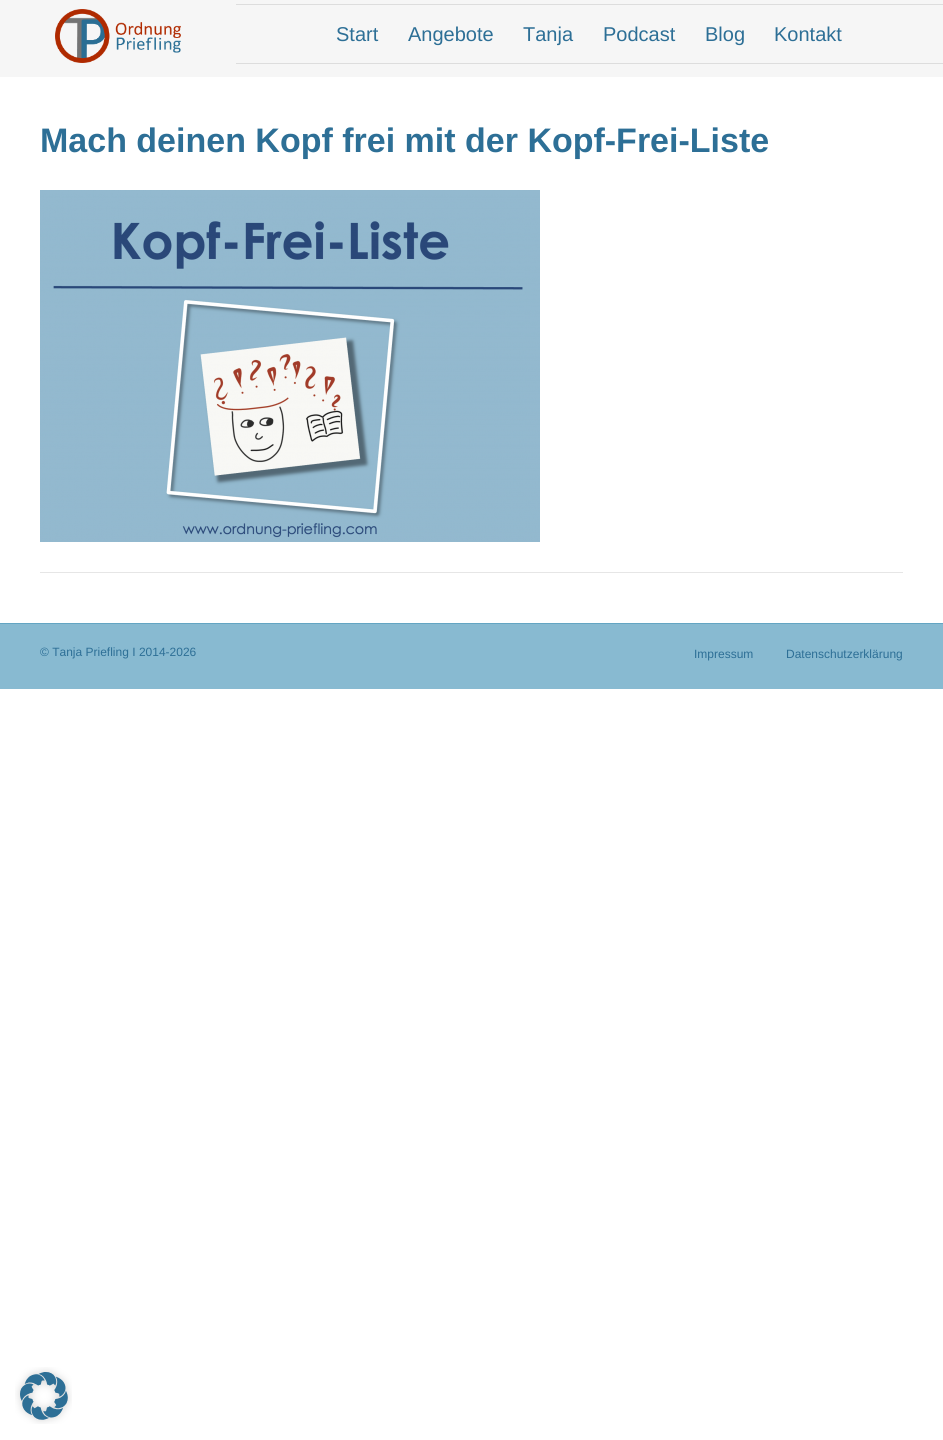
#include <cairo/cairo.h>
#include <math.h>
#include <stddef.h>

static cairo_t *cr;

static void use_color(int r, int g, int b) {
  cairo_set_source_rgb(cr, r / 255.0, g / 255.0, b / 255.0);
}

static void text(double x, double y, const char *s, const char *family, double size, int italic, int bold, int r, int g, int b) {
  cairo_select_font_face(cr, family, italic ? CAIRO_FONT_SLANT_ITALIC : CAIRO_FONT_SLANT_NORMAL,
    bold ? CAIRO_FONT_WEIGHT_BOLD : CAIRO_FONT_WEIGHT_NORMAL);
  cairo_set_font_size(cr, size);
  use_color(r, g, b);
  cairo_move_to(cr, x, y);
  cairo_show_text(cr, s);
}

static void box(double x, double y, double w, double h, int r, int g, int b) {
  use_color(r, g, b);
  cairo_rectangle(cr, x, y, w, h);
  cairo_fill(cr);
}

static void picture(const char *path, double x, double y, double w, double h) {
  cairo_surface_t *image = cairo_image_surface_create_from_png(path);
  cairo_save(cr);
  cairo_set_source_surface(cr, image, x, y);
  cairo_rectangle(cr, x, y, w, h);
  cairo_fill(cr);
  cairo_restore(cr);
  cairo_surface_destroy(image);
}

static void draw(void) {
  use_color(255, 255, 255);
  cairo_paint(cr);
  box(0, 0, 943, 77, 246, 246, 246);
  picture("img_01.png", 55, 9, 126, 54);
  box(236, 4, 707, 1, 221, 221, 221);
  box(236, 63, 707, 1, 221, 221, 221);
  picture("img_02.png", 40, 190, 500, 352);
  box(40, 572, 863, 1, 230, 230, 230);
  box(0, 624, 943, 65, 136, 186, 209);
  box(0, 623, 943, 1, 99, 165, 195);
  picture("img_03.png", 15, 1367, 57, 57);
  text(336, 41, "Start", "Liberation Sans", 20, 0, 0, 45, 111, 150);
  text(408, 41, "Angebote", "Liberation Sans", 20, 0, 0, 45, 111, 150);
  text(523, 41, "Tanja", "Liberation Sans", 20, 0, 0, 45, 111, 150);
  text(603, 41, "Podcast", "Liberation Sans", 20, 0, 0, 45, 111, 150);
  text(705, 41, "Blog", "Liberation Sans", 20, 0, 0, 45, 111, 150);
  text(774, 41, "Kontakt", "Liberation Sans", 20, 0, 0, 45, 111, 150);
  text(40, 152, "Mach deinen Kopf frei mit der Kopf-Frei-Liste", "Liberation Sans", 34, 0, 1, 45, 111, 150);
  text(40, 656, "© Tanja Priefling I 2014-2026", "Liberation Sans", 12, 0, 0, 45, 111, 150);
  text(694, 658, "Impressum", "Liberation Sans", 12, 0, 0, 45, 111, 150);
  text(786, 658, "Datenschutzerklärung", "Liberation Sans", 12, 0, 0, 45, 111, 150);
}

int main(void) {
  cairo_surface_t *surface = cairo_image_surface_create(CAIRO_FORMAT_RGB24, 943, 1440);
  cr = cairo_create(surface);
  cairo_font_options_t *options = cairo_font_options_create();
  cairo_font_options_set_hint_metrics(options, CAIRO_HINT_METRICS_OFF);
  cairo_font_options_set_hint_style(options, CAIRO_HINT_STYLE_NONE);
  cairo_set_font_options(cr, options);
  cairo_set_miter_limit(cr, 4);
  draw();
  cairo_surface_write_to_png(surface, "out.png");
  cairo_font_options_destroy(options);
  cairo_destroy(cr);
  cairo_surface_destroy(surface);
  return 0;
}
